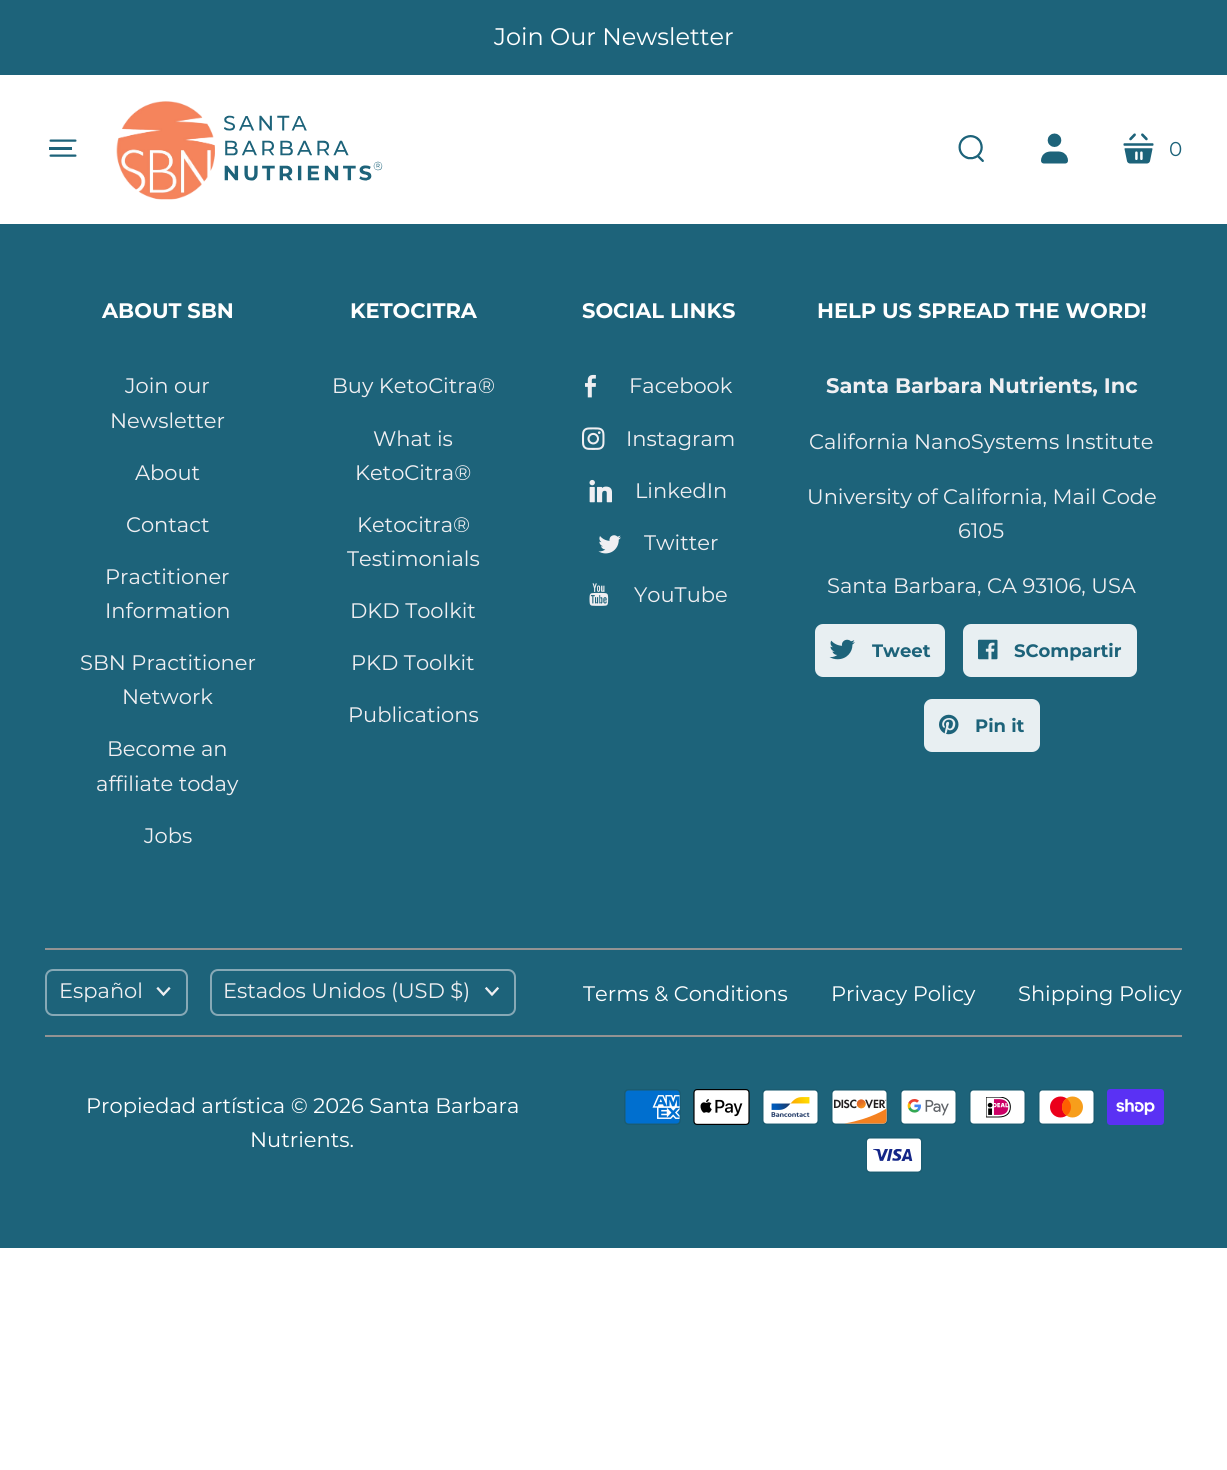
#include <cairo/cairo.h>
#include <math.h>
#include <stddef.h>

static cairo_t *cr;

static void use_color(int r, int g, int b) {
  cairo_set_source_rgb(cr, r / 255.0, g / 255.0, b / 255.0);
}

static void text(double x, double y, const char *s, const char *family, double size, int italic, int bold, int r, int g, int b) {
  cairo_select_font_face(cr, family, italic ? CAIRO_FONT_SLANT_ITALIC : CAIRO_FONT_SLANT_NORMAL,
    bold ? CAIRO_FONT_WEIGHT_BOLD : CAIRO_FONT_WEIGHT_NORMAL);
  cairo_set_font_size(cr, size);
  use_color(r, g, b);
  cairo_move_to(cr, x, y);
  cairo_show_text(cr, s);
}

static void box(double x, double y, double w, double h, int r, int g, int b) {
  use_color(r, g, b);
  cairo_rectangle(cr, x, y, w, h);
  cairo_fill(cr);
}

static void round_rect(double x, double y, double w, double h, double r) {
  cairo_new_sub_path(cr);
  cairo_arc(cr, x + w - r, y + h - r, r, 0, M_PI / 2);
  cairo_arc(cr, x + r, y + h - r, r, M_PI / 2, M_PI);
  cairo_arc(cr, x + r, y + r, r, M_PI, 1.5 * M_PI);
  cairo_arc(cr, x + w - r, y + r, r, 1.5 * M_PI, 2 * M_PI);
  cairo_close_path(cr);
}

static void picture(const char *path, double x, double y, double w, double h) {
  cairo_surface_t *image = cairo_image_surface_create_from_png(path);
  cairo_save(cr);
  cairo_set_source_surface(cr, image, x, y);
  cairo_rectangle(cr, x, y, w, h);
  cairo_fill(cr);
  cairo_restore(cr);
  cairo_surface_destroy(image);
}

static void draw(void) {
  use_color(255, 255, 255);
  cairo_paint(cr);
  box(0, 0, 1227, 75, 29, 99, 122);
  picture("img_01.png", 49, 139, 28, 18);
  box(49, 147, 23, 3, 29, 99, 122);
  picture("img_02.png", 116, 101, 267, 99);
  picture("img_03.png", 958, 135, 26, 27);
  picture("img_04.png", 1041, 133, 27, 31);
  picture("img_05.png", 1123, 133, 31, 31);
  box(0, 224, 1227, 1024, 29, 99, 122);
  picture("img_06.png", 585, 374, 11, 24);
  picture("img_07.png", 582, 427, 23, 23);
  picture("img_08.png", 589, 479, 23, 24);
  picture("img_09.png", 598, 535, 23, 19);
  picture("img_10.png", 589, 583, 20, 23);
  use_color(232, 239, 242);
  round_rect(815, 624, 130, 53, 8);
  cairo_fill(cr);
  picture("img_11.png", 829, 639, 26, 21);
  round_rect(963, 624, 174, 53, 8);
  cairo_fill(cr);
  picture("img_12.png", 978, 639, 20, 21);
  round_rect(924, 699, 116, 53, 8);
  cairo_fill(cr);
  picture("img_13.png", 939, 714, 20, 21);
  round_rect(46, 970, 141, 45, 7);
  use_color(135, 169, 182);
  cairo_stroke(cr);
  cairo_new_path(cr);
  cairo_move_to(cr, 163.5, 994.5);
  cairo_line_to(cr, 169, 988.5);
  cairo_move_to(cr, 163.5, 994.5);
  cairo_line_to(cr, 158, 988.5);
  use_color(240, 239, 242);
  cairo_set_line_width(cr, 2.3);
  cairo_set_line_cap(cr, CAIRO_LINE_CAP_SQUARE);
  cairo_stroke(cr);
  round_rect(211, 970, 304, 45, 7);
  use_color(135, 169, 182);
  cairo_set_line_width(cr, 2);
  cairo_set_line_cap(cr, CAIRO_LINE_CAP_BUTT);
  cairo_stroke(cr);
  cairo_new_path(cr);
  cairo_move_to(cr, 492, 994.5);
  cairo_line_to(cr, 497.5, 988.5);
  cairo_move_to(cr, 492, 994.5);
  cairo_line_to(cr, 486.5, 988.5);
  use_color(240, 239, 242);
  cairo_set_line_width(cr, 2.3);
  cairo_set_line_cap(cr, CAIRO_LINE_CAP_SQUARE);
  cairo_stroke(cr);
  box(45, 948, 1137, 2, 147, 147, 147);
  box(45, 1035, 1137, 2, 147, 147, 147);
  picture("img_14.png", 624, 1089, 57, 36);
  picture("img_15.png", 693, 1089, 57, 36);
  picture("img_16.png", 762, 1089, 57, 36);
  picture("img_17.png", 831, 1089, 57, 36);
  picture("img_18.png", 900, 1089, 57, 36);
  picture("img_19.png", 969, 1089, 57, 36);
  picture("img_20.png", 1038, 1089, 57, 36);
  picture("img_21.png", 1107, 1089, 57, 36);
  picture("img_22.png", 866, 1137, 57, 36);
  text(494, 45, "Join Our Newsletter", "Montserrat", 24, 0, 0, 255, 255, 255);
  text(1169, 156, "0", "Montserrat", 20, 0, 0, 29, 99, 122);
  text(102, 318, "ABOUT SBN", "Montserrat", 21, 0, 1, 255, 255, 255);
  text(125, 393, "Join our", "Montserrat", 21, 0, 0, 240, 239, 242);
  text(110, 428, "Newsletter", "Montserrat", 21, 0, 0, 240, 239, 242);
  text(135, 480, "About", "Montserrat", 21, 0, 0, 240, 239, 242);
  text(126, 532, "Contact", "Montserrat", 21, 0, 0, 240, 239, 242);
  text(105, 584, "Practitioner", "Montserrat", 21, 0, 0, 240, 239, 242);
  text(105, 618, "Information", "Montserrat", 21, 0, 0, 240, 239, 242);
  text(80, 670, "SBN Practitioner", "Montserrat", 21, 0, 0, 240, 239, 242);
  text(122, 704, "Network", "Montserrat", 21, 0, 0, 240, 239, 242);
  text(107, 756, "Become an", "Montserrat", 21, 0, 0, 240, 239, 242);
  text(96, 791, "affiliate today", "Montserrat", 21, 0, 0, 240, 239, 242);
  text(144, 843, "Jobs", "Montserrat", 21, 0, 0, 240, 239, 242);
  text(350, 318, "KETOCITRA", "Montserrat", 21, 0, 1, 255, 255, 255);
  text(332, 393, "Buy KetoCitra®", "Montserrat", 21, 0, 0, 240, 239, 242);
  text(373, 446, "What is", "Montserrat", 21, 0, 0, 240, 239, 242);
  text(355, 480, "KetoCitra®", "Montserrat", 21, 0, 0, 240, 239, 242);
  text(357, 532, "Ketocitra®", "Montserrat", 21, 0, 0, 240, 239, 242);
  text(347, 566, "Testimonials", "Montserrat", 21, 0, 0, 240, 239, 242);
  text(350, 618, "DKD Toolkit", "Montserrat", 21, 0, 0, 240, 239, 242);
  text(351, 670, "PKD Toolkit", "Montserrat", 21, 0, 0, 240, 239, 242);
  text(348, 722, "Publications", "Montserrat", 21, 0, 0, 240, 239, 242);
  text(582, 318, "SOCIAL LINKS", "Montserrat", 21, 0, 1, 255, 255, 255);
  text(629, 393, "Facebook", "Montserrat", 21, 0, 0, 240, 239, 242);
  text(626, 446, "Instagram", "Montserrat", 21, 0, 0, 240, 239, 242);
  text(635, 498, "LinkedIn", "Montserrat", 21, 0, 0, 240, 239, 242);
  text(644, 550, "Twitter", "Montserrat", 21, 0, 0, 240, 239, 242);
  text(634, 602, "YouTube", "Montserrat", 21, 0, 0, 240, 239, 242);
  text(817, 318, "HELP US SPREAD THE WORD!", "Montserrat", 21, 0, 1, 255, 255, 255);
  text(826, 393, "Santa Barbara Nutrients, Inc", "Montserrat", 21, 0, 1, 240, 239, 242);
  text(809, 449, "California NanoSystems Institute", "Montserrat", 21, 0, 0, 240, 239, 242);
  text(807, 504, "University of California, Mail Code", "Montserrat", 21, 0, 0, 240, 239, 242);
  text(958, 538, "6105", "Montserrat", 21, 0, 0, 240, 239, 242);
  text(827, 593, "Santa Barbara, CA 93106, USA", "Montserrat", 21, 0, 0, 240, 239, 242);
  text(872, 657, "Tweet", "Montserrat", 18, 0, 1, 29, 99, 122);
  text(1014, 657, "SCompartir", "Montserrat", 18, 0, 1, 29, 99, 122);
  text(975, 732, "Pin it", "Montserrat", 18, 0, 1, 29, 99, 122);
  text(59, 998, "Español", "Montserrat", 21, 0, 0, 240, 239, 242);
  text(223, 998, "Estados Unidos (USD $)", "Montserrat", 21, 0, 0, 240, 239, 242);
  text(583, 1001, "Terms & Conditions", "Montserrat", 21, 0, 0, 255, 255, 255);
  text(831, 1001, "Privacy Policy", "Montserrat", 21, 0, 0, 255, 255, 255);
  text(1018, 1001, "Shipping Policy", "Montserrat", 21, 0, 0, 255, 255, 255);
  text(86, 1113, "Propiedad artística © 2026 Santa Barbara", "Montserrat", 21, 0, 0, 255, 255, 255);
  text(250, 1147, "Nutrients.", "Montserrat", 21, 0, 0, 255, 255, 255);
}

int main(void) {
  cairo_surface_t *surface = cairo_image_surface_create(CAIRO_FORMAT_RGB24, 1227, 1470);
  cr = cairo_create(surface);
  cairo_font_options_t *options = cairo_font_options_create();
  cairo_font_options_set_hint_metrics(options, CAIRO_HINT_METRICS_OFF);
  cairo_font_options_set_hint_style(options, CAIRO_HINT_STYLE_NONE);
  cairo_set_font_options(cr, options);
  cairo_set_miter_limit(cr, 4);
  draw();
  cairo_surface_write_to_png(surface, "out.png");
  cairo_font_options_destroy(options);
  cairo_destroy(cr);
  cairo_surface_destroy(surface);
  return 0;
}
